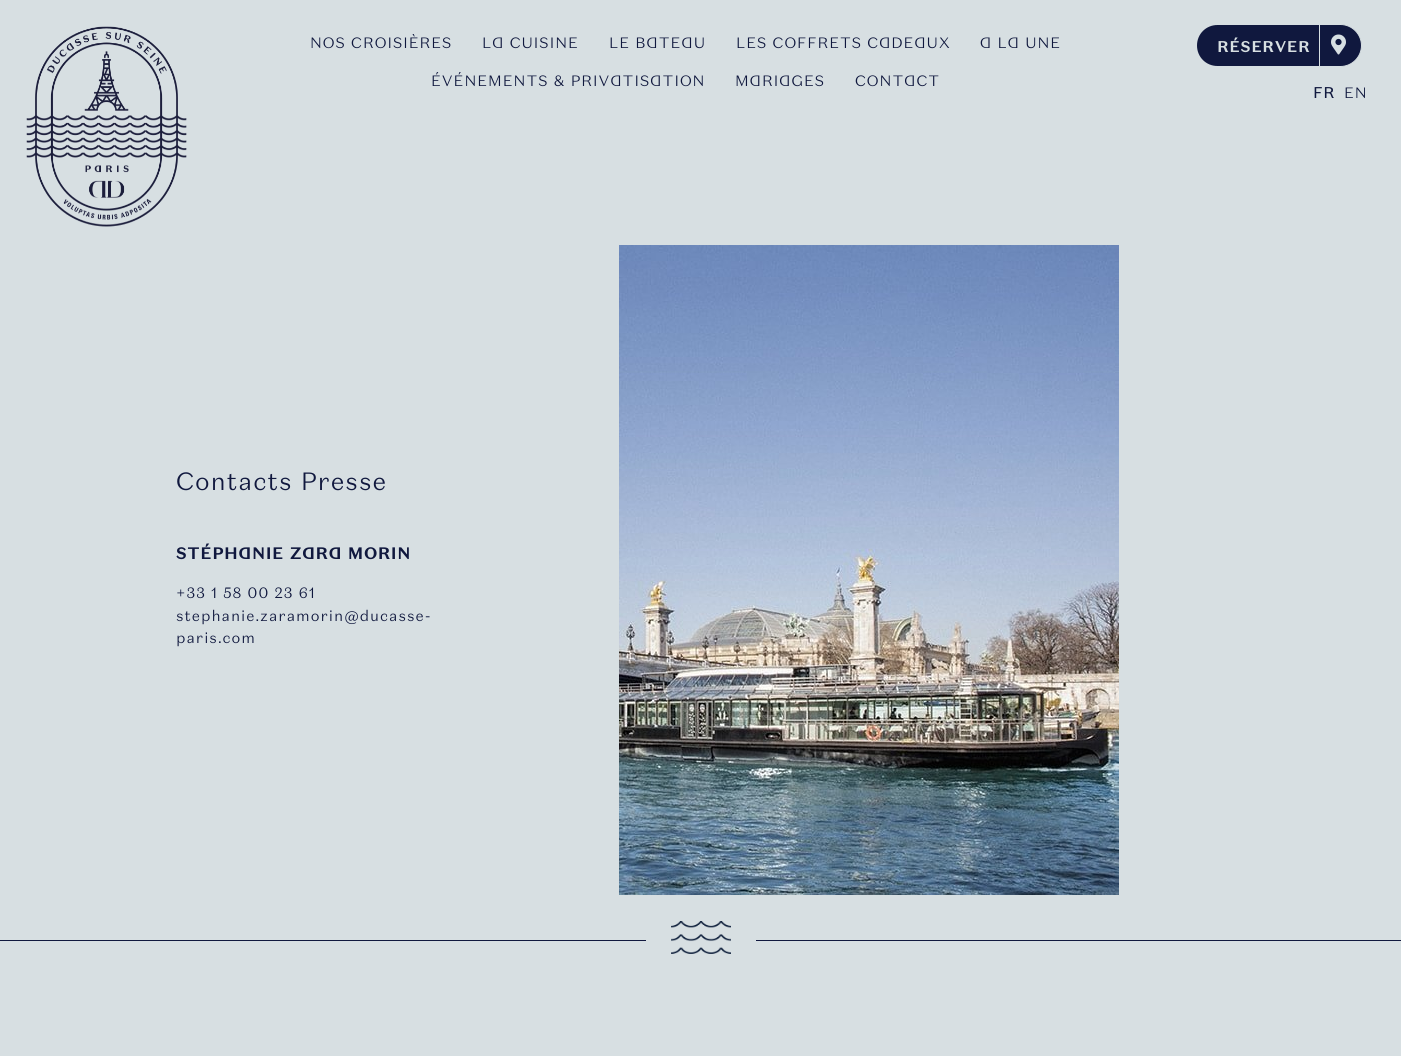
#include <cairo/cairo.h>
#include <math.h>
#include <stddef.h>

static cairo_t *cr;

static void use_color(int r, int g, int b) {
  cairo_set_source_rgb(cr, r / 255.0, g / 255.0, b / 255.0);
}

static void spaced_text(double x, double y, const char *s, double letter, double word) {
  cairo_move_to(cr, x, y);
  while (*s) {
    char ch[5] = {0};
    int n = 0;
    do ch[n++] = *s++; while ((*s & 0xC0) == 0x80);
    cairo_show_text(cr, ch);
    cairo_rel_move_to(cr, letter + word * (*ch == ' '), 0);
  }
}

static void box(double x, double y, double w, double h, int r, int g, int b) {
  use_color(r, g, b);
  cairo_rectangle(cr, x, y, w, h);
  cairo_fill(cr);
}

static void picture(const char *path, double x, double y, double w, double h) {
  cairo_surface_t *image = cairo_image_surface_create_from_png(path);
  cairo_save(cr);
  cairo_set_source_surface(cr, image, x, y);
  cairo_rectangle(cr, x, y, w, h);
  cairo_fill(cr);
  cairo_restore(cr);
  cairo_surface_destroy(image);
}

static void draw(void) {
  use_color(215, 223, 226);
  cairo_paint(cr);
  picture("img_01.png", 26, 26, 161, 201);
  use_color(16, 24, 62);
  cairo_new_path(cr);
  cairo_move_to(cr, 1217.5, 25);
  cairo_line_to(cr, 1320, 25);
  cairo_line_to(cr, 1320, 66);
  cairo_line_to(cr, 1217.5, 66);
  cairo_curve_to(cr, 1206, 66, 1197, 57, 1197, 45.5);
  cairo_curve_to(cr, 1197, 34, 1206, 25, 1217.5, 25);
  cairo_close_path(cr);
  cairo_fill(cr);
  cairo_new_path(cr);
  cairo_move_to(cr, 1319.5, 24.5);
  cairo_line_to(cr, 1340.5, 24.5);
  cairo_curve_to(cr, 1352, 24.5, 1361.5, 34, 1361.5, 45.5);
  cairo_curve_to(cr, 1361.5, 57, 1352, 66.5, 1340.5, 66.5);
  cairo_line_to(cr, 1319.5, 66.5);
  cairo_close_path(cr);
  cairo_fill_preserve(cr);
  use_color(215, 223, 226);
  cairo_set_line_width(cr, 1);
  cairo_stroke(cr);
  picture("img_02.png", 1331, 34, 15, 21);
  picture("img_03.png", 619, 245, 500, 650);
  box(0, 940, 1401, 1, 16, 24, 62);
  box(646, 940, 110, 1, 215, 223, 226);
  picture("img_04.png", 671, 921, 60, 33);
  cairo_select_font_face(cr, "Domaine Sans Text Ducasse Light", CAIRO_FONT_SLANT_NORMAL, CAIRO_FONT_WEIGHT_NORMAL);
  cairo_set_font_size(cr, 15);
  use_color(16, 24, 62);
  spaced_text(310, 48, "NOS CROISIÈRES", 1, 0);
  spaced_text(482, 48, "LA CUISINE", 1, 0);
  spaced_text(609, 48, "LE BATEAU", 1, 0);
  spaced_text(736, 48, "LES COFFRETS CADEAUX", 1, 0);
  spaced_text(980, 48, "A LA UNE", 1, 0);
  spaced_text(431, 86, "ÉVÉNEMENTS & PRIVATISATION", 1, 0);
  spaced_text(735, 86, "MARIAGES", 1, 0);
  spaced_text(855, 86, "CONTACT", 1, 0);
  cairo_select_font_face(cr, "Domaine Sans Text Ducasse", CAIRO_FONT_SLANT_NORMAL, CAIRO_FONT_WEIGHT_BOLD);
  use_color(215, 223, 226);
  spaced_text(1217, 52, "RÉSERVER", 1, 0);
  cairo_select_font_face(cr, "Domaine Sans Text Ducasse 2", CAIRO_FONT_SLANT_NORMAL, CAIRO_FONT_WEIGHT_BOLD);
  use_color(16, 24, 62);
  spaced_text(1313, 98, "FR", 1, 0);
  cairo_select_font_face(cr, "Domaine Sans Text Ducasse Light", CAIRO_FONT_SLANT_NORMAL, CAIRO_FONT_WEIGHT_NORMAL);
  spaced_text(1344, 98, "EN", 1, 0);
  cairo_set_font_size(cr, 25);
  spaced_text(176, 490, "Contacts Presse", 1, 0);
  cairo_select_font_face(cr, "Domaine Sans Text Ducasse", CAIRO_FONT_SLANT_NORMAL, CAIRO_FONT_WEIGHT_BOLD);
  cairo_set_font_size(cr, 16);
  spaced_text(176, 559, "STÉPHANIE ZARA MORIN", 1, 0);
  cairo_select_font_face(cr, "Domaine Sans Text Ducasse Light", CAIRO_FONT_SLANT_NORMAL, CAIRO_FONT_WEIGHT_NORMAL);
  cairo_set_font_size(cr, 15);
  spaced_text(176, 598, "+33 1 58 00 23 61", 1, 0);
  spaced_text(176, 621, "stephanie.zaramorin@ducasse-", 1, 0);
  spaced_text(176, 643, "paris.com", 1, 0);
}

int main(void) {
  cairo_surface_t *surface = cairo_image_surface_create(CAIRO_FORMAT_RGB24, 1401, 1056);
  cr = cairo_create(surface);
  cairo_font_options_t *options = cairo_font_options_create();
  cairo_font_options_set_hint_metrics(options, CAIRO_HINT_METRICS_OFF);
  cairo_font_options_set_hint_style(options, CAIRO_HINT_STYLE_NONE);
  cairo_set_font_options(cr, options);
  cairo_set_miter_limit(cr, 4);
  draw();
  cairo_surface_write_to_png(surface, "out.png");
  cairo_font_options_destroy(options);
  cairo_destroy(cr);
  cairo_surface_destroy(surface);
  return 0;
}
